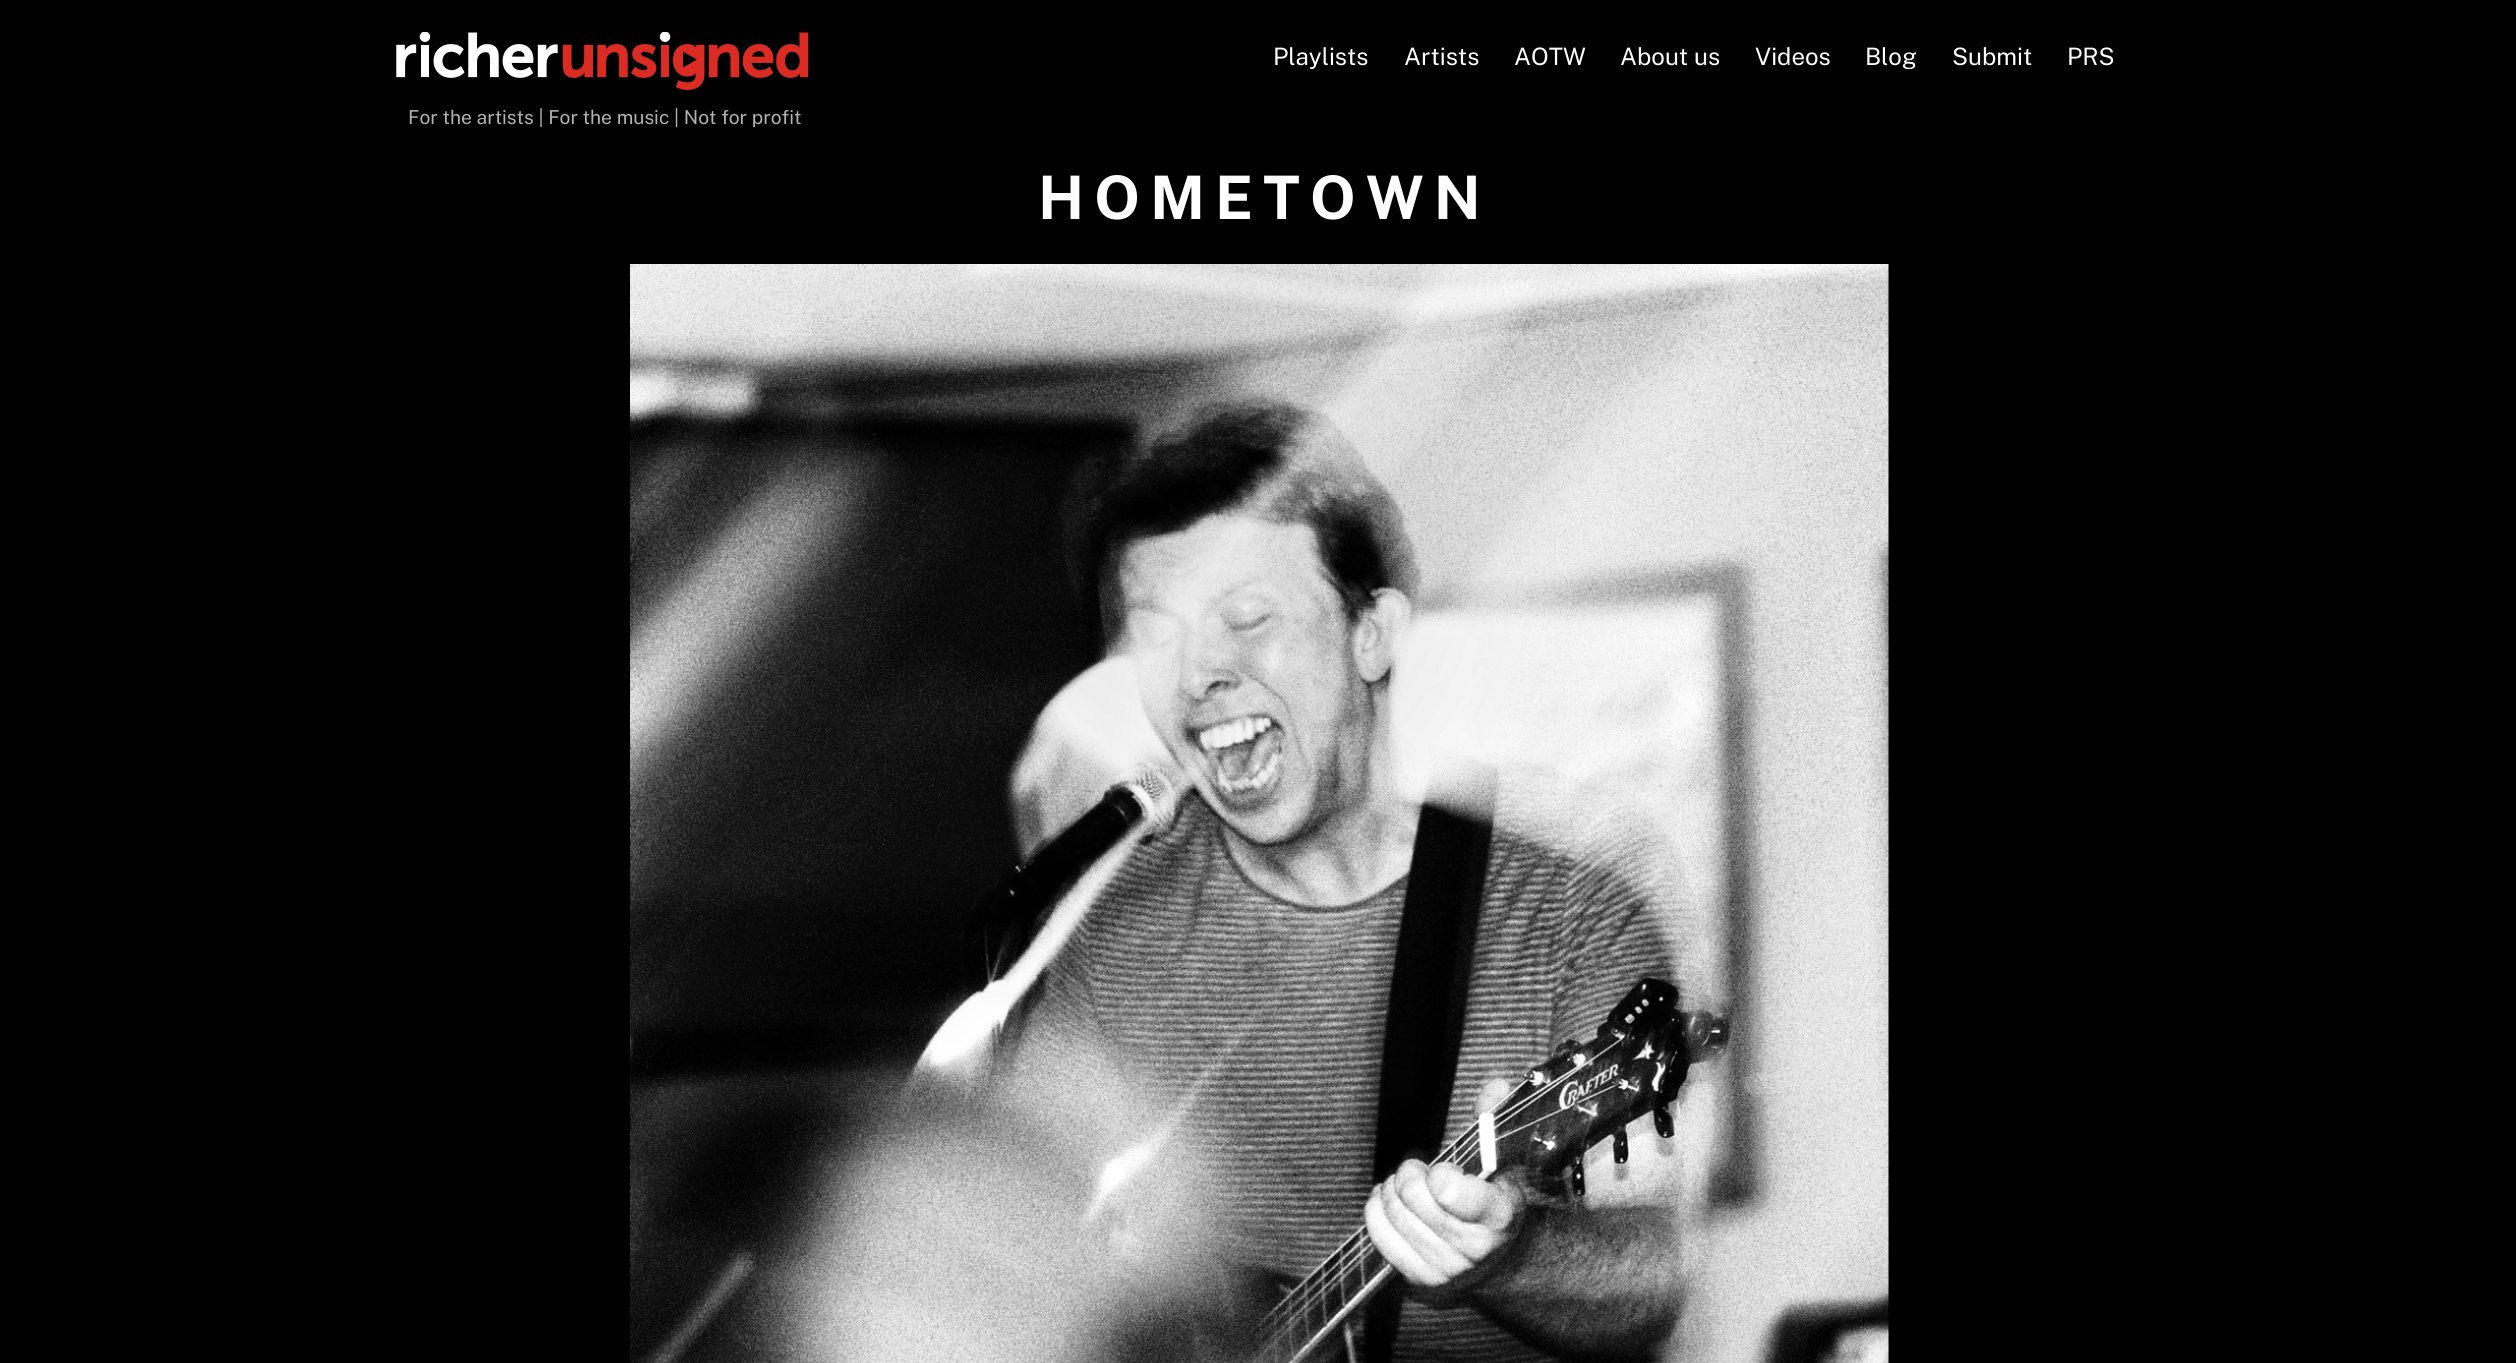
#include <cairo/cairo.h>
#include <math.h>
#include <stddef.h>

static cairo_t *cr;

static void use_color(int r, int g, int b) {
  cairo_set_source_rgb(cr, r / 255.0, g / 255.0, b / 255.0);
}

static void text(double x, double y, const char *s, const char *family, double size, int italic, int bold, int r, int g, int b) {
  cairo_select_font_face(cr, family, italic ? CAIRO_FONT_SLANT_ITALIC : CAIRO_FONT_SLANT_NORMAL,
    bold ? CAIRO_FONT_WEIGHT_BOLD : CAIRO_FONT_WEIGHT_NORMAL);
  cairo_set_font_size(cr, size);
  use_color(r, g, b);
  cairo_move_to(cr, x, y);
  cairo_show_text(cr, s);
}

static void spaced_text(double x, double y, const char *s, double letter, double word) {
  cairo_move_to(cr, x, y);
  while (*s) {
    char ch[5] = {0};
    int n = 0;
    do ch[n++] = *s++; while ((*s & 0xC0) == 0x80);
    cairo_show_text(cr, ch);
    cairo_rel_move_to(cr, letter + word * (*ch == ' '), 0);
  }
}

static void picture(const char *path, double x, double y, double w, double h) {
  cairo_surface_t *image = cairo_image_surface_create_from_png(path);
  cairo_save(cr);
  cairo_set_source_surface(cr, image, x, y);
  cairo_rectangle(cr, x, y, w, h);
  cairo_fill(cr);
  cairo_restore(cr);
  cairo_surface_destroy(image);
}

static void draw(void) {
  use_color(0, 0, 0);
  cairo_paint(cr);
  picture("img_01.png", 396, 32, 413, 58);
  picture("img_02.png", 630, 264, 1259, 1099);
  text(1273, 65, "Playlists", "Public Sans", 24, 0, 0, 255, 255, 255);
  text(1404, 65, "Artists", "Public Sans", 24, 0, 0, 255, 255, 255);
  text(1514, 65, "AOTW", "Public Sans", 24, 0, 0, 255, 255, 255);
  text(1620, 65, "About us", "Public Sans", 24, 0, 0, 255, 255, 255);
  text(1755, 65, "Videos", "Public Sans", 24, 0, 0, 255, 255, 255);
  text(1865, 65, "Blog", "Public Sans", 24, 0, 0, 255, 255, 255);
  text(1952, 65, "Submit", "Public Sans", 24, 0, 0, 255, 255, 255);
  text(2067, 65, "PRS", "Public Sans", 24, 0, 0, 255, 255, 255);
  text(408, 124, "For the artists | For the music | Not for profit", "Public Sans", 19.2, 0, 0, 179, 179, 179);
  cairo_select_font_face(cr, "Public Sans", CAIRO_FONT_SLANT_NORMAL, CAIRO_FONT_WEIGHT_BOLD);
  cairo_set_font_size(cr, 60);
  use_color(255, 255, 255);
  spaced_text(1038, 219, "H O M E T O W N", -1.75, 0);
}

int main(void) {
  cairo_surface_t *surface = cairo_image_surface_create(CAIRO_FORMAT_RGB24, 2516, 1363);
  cr = cairo_create(surface);
  cairo_font_options_t *options = cairo_font_options_create();
  cairo_font_options_set_hint_metrics(options, CAIRO_HINT_METRICS_OFF);
  cairo_font_options_set_hint_style(options, CAIRO_HINT_STYLE_NONE);
  cairo_set_font_options(cr, options);
  cairo_set_miter_limit(cr, 4);
  draw();
  cairo_surface_write_to_png(surface, "out.png");
  cairo_font_options_destroy(options);
  cairo_destroy(cr);
  cairo_surface_destroy(surface);
  return 0;
}
